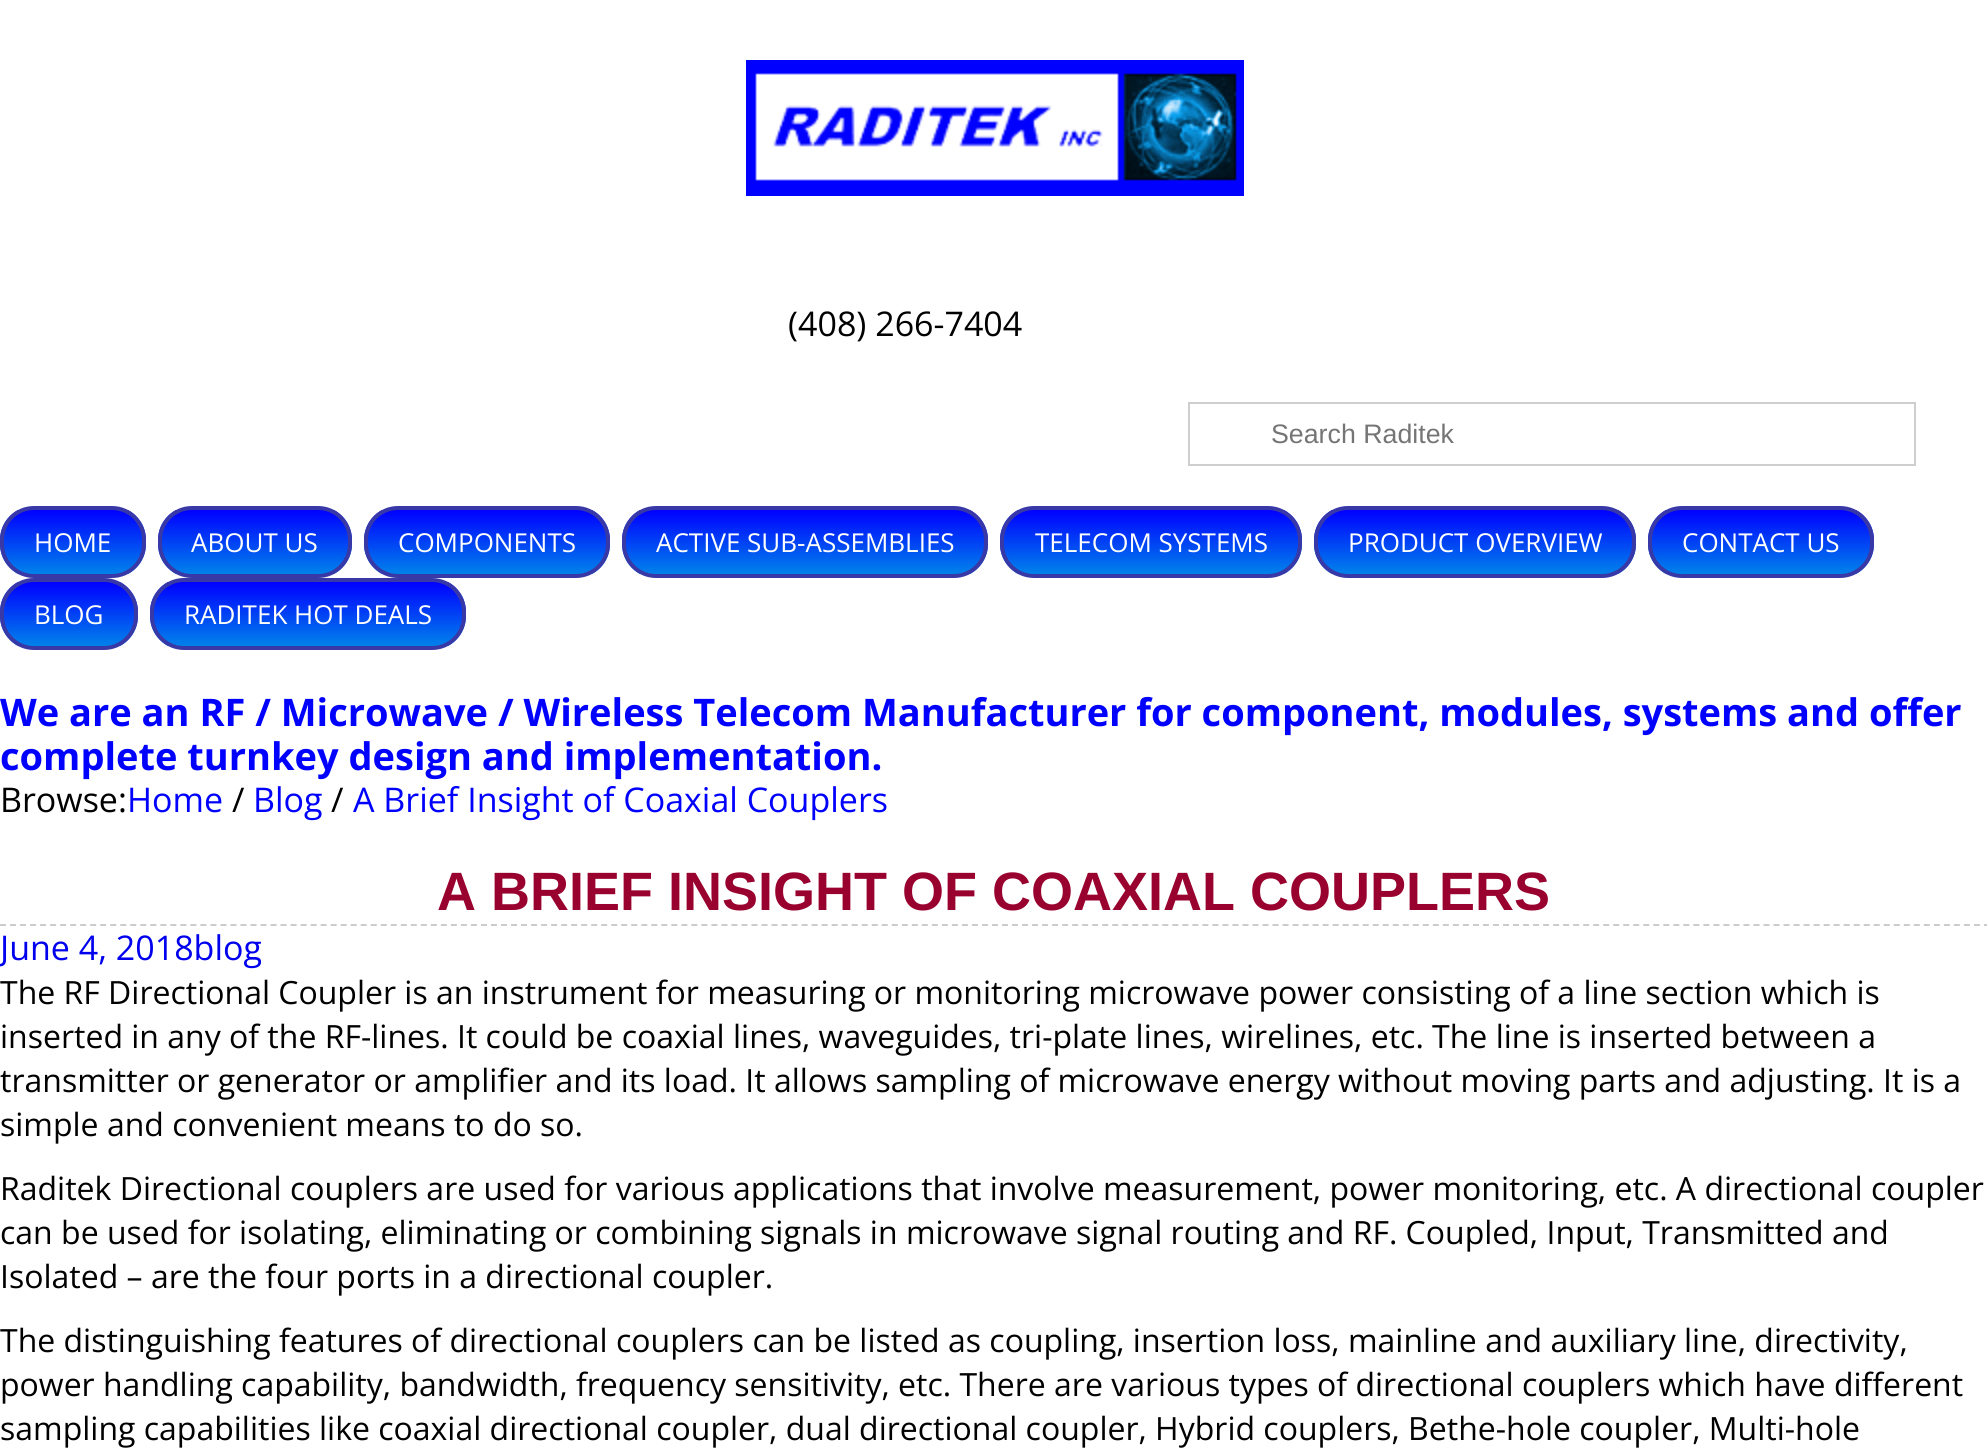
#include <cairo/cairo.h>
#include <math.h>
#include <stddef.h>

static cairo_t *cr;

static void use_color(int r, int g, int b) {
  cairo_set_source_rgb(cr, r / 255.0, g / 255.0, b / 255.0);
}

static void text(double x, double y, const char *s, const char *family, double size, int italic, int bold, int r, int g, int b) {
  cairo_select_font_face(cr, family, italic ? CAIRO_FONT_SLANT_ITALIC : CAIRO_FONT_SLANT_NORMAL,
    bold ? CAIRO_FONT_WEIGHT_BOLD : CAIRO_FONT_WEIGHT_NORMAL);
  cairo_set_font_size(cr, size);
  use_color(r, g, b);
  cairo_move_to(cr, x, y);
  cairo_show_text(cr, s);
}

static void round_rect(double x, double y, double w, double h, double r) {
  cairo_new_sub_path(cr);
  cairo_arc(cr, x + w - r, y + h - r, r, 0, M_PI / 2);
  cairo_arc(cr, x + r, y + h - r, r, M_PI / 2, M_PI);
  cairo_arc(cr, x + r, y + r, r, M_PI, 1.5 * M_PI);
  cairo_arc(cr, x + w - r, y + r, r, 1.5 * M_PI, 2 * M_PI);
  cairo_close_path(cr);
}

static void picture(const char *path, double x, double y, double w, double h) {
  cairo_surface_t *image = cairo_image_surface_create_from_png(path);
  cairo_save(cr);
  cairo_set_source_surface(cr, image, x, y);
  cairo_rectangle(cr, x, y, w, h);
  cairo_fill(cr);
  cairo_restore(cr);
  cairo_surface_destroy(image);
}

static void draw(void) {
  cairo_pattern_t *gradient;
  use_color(255, 255, 255);
  cairo_paint(cr);
  picture("img_01.png", 746, 60, 498, 136);
  cairo_rectangle(cr, 1189, 403, 726, 62);
  use_color(206, 206, 206);
  cairo_stroke(cr);
  cairo_save(cr);
  round_rect(0, 506, 146, 72, 34);
  cairo_clip(cr);
  gradient = cairo_pattern_create_linear(73, 510, 73, 574);
  cairo_pattern_add_color_stop_rgba(gradient, 0, 0, 0, 1, 1);
  cairo_pattern_add_color_stop_rgba(gradient, 0.99, 0, 0.506, 0.918, 1);
  cairo_set_source(cr, gradient);
  cairo_pattern_destroy(gradient);
  cairo_rectangle(cr, 0, 510, 146, 64);
  cairo_fill(cr);
  cairo_restore(cr);
  round_rect(2, 508, 142, 68, 32);
  use_color(56, 56, 167);
  cairo_set_line_width(cr, 4);
  cairo_stroke(cr);
  cairo_save(cr);
  round_rect(158, 506, 194, 72, 34);
  cairo_clip(cr);
  gradient = cairo_pattern_create_linear(255, 510, 255, 574);
  cairo_pattern_add_color_stop_rgba(gradient, 0, 0, 0, 1, 1);
  cairo_pattern_add_color_stop_rgba(gradient, 0.99, 0, 0.506, 0.918, 1);
  cairo_set_source(cr, gradient);
  cairo_pattern_destroy(gradient);
  cairo_rectangle(cr, 158, 510, 194, 64);
  cairo_fill(cr);
  cairo_restore(cr);
  round_rect(160, 508, 190, 68, 32);
  cairo_stroke(cr);
  cairo_save(cr);
  round_rect(364, 506, 246, 72, 34);
  cairo_clip(cr);
  gradient = cairo_pattern_create_linear(487, 510, 487, 574);
  cairo_pattern_add_color_stop_rgba(gradient, 0, 0, 0, 1, 1);
  cairo_pattern_add_color_stop_rgba(gradient, 0.99, 0, 0.506, 0.918, 1);
  cairo_set_source(cr, gradient);
  cairo_pattern_destroy(gradient);
  cairo_rectangle(cr, 364, 510, 246, 64);
  cairo_fill(cr);
  cairo_restore(cr);
  round_rect(366, 508, 242, 68, 32);
  cairo_stroke(cr);
  cairo_save(cr);
  round_rect(622, 506, 366, 72, 34);
  cairo_clip(cr);
  gradient = cairo_pattern_create_linear(805, 510, 805, 574);
  cairo_pattern_add_color_stop_rgba(gradient, 0, 0, 0, 1, 1);
  cairo_pattern_add_color_stop_rgba(gradient, 0.99, 0, 0.506, 0.918, 1);
  cairo_set_source(cr, gradient);
  cairo_pattern_destroy(gradient);
  cairo_rectangle(cr, 622, 510, 366, 64);
  cairo_fill(cr);
  cairo_restore(cr);
  round_rect(624, 508, 362, 68, 32);
  cairo_stroke(cr);
  cairo_save(cr);
  round_rect(1000, 506, 302, 72, 34);
  cairo_clip(cr);
  gradient = cairo_pattern_create_linear(1151, 510, 1151, 574);
  cairo_pattern_add_color_stop_rgba(gradient, 0, 0, 0, 1, 1);
  cairo_pattern_add_color_stop_rgba(gradient, 0.99, 0, 0.506, 0.918, 1);
  cairo_set_source(cr, gradient);
  cairo_pattern_destroy(gradient);
  cairo_rectangle(cr, 1000, 510, 302, 64);
  cairo_fill(cr);
  cairo_restore(cr);
  round_rect(1002, 508, 298, 68, 32);
  cairo_stroke(cr);
  cairo_save(cr);
  round_rect(1314, 506, 322, 72, 34);
  cairo_clip(cr);
  gradient = cairo_pattern_create_linear(1475, 510, 1475, 574);
  cairo_pattern_add_color_stop_rgba(gradient, 0, 0, 0, 1, 1);
  cairo_pattern_add_color_stop_rgba(gradient, 0.99, 0, 0.506, 0.918, 1);
  cairo_set_source(cr, gradient);
  cairo_pattern_destroy(gradient);
  cairo_rectangle(cr, 1314, 510, 322, 64);
  cairo_fill(cr);
  cairo_restore(cr);
  round_rect(1316, 508, 318, 68, 32);
  cairo_stroke(cr);
  cairo_save(cr);
  round_rect(1648, 506, 226, 72, 34);
  cairo_clip(cr);
  gradient = cairo_pattern_create_linear(1761, 510, 1761, 574);
  cairo_pattern_add_color_stop_rgba(gradient, 0, 0, 0, 1, 1);
  cairo_pattern_add_color_stop_rgba(gradient, 0.99, 0, 0.506, 0.918, 1);
  cairo_set_source(cr, gradient);
  cairo_pattern_destroy(gradient);
  cairo_rectangle(cr, 1648, 510, 226, 64);
  cairo_fill(cr);
  cairo_restore(cr);
  round_rect(1650, 508, 222, 68, 32);
  cairo_stroke(cr);
  cairo_save(cr);
  round_rect(0, 578, 138, 72, 34);
  cairo_clip(cr);
  gradient = cairo_pattern_create_linear(69, 582, 69, 646);
  cairo_pattern_add_color_stop_rgba(gradient, 0, 0, 0, 1, 1);
  cairo_pattern_add_color_stop_rgba(gradient, 0.99, 0, 0.506, 0.918, 1);
  cairo_set_source(cr, gradient);
  cairo_pattern_destroy(gradient);
  cairo_rectangle(cr, 0, 582, 138, 64);
  cairo_fill(cr);
  cairo_restore(cr);
  round_rect(2, 580, 134, 68, 32);
  cairo_stroke(cr);
  cairo_save(cr);
  round_rect(150, 578, 316, 72, 34);
  cairo_clip(cr);
  gradient = cairo_pattern_create_linear(308, 582, 308, 646);
  cairo_pattern_add_color_stop_rgba(gradient, 0, 0, 0, 1, 1);
  cairo_pattern_add_color_stop_rgba(gradient, 0.99, 0, 0.506, 0.918, 1);
  cairo_set_source(cr, gradient);
  cairo_pattern_destroy(gradient);
  cairo_rectangle(cr, 150, 582, 316, 64);
  cairo_fill(cr);
  cairo_restore(cr);
  round_rect(152, 580, 312, 68, 32);
  cairo_stroke(cr);
  cairo_new_path(cr);
  cairo_move_to(cr, 0, 925);
  cairo_line_to(cr, 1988, 925);
  use_color(204, 204, 204);
  cairo_set_line_width(cr, 2);
  cairo_set_dash(cr, (double[]){6, 4.02}, 2, 0);
  cairo_stroke(cr);
  text(788, 336, "(408) 266-7404", "Open Sans", 34, 0, 0, 0, 0, 0);
  text(1271, 443, "Search Raditek", "Liberation Sans", 26.75, 0, 0, 117, 117, 117);
  text(34, 552, "HOME", "Open Sans", 26, 0, 0, 255, 255, 255);
  text(191, 552, "ABOUT US", "Open Sans", 26, 0, 0, 255, 255, 255);
  text(398, 552, "COMPONENTS", "Open Sans", 26, 0, 0, 255, 255, 255);
  text(656, 552, "ACTIVE SUB-ASSEMBLIES", "Open Sans", 26, 0, 0, 255, 255, 255);
  text(1035, 552, "TELECOM SYSTEMS", "Open Sans", 26, 0, 0, 255, 255, 255);
  text(1348, 552, "PRODUCT OVERVIEW", "Open Sans", 26, 0, 0, 255, 255, 255);
  text(1682, 552, "CONTACT US", "Open Sans", 26, 0, 0, 255, 255, 255);
  text(34, 624, "BLOG", "Open Sans", 26, 0, 0, 255, 255, 255);
  text(184, 624, "RADITEK HOT DEALS", "Open Sans", 26, 0, 0, 255, 255, 255);
  text(0, 726, "We are an RF / Microwave / Wireless Telecom Manufacturer for component, modules, systems and offer", "Open Sans", 38, 0, 1, 0, 0, 255);
  text(0, 770, "complete turnkey design and implementation.", "Open Sans", 38, 0, 1, 0, 0, 255);
  text(0, 812, "Browse:", "Open Sans", 34, 0, 0, 0, 0, 0);
  text(127, 812, "Home", "Open Sans", 34, 0, 0, 0, 0, 255);
  text(232, 812, "/", "Open Sans", 34, 0, 0, 0, 0, 0);
  text(253, 812, "Blog", "Open Sans", 34, 0, 0, 0, 0, 255);
  text(331, 812, "/", "Open Sans", 34, 0, 0, 0, 0, 0);
  text(353, 812, "A Brief Insight of Coaxial Couplers", "Open Sans", 34, 0, 0, 0, 0, 255);
  text(437, 910, "A BRIEF INSIGHT OF COAXIAL COUPLERS", "Liberation Sans", 54, 0, 1, 153, 2, 47);
  text(0, 960, "June 4, 2018blog", "Open Sans", 34, 0, 0, 0, 0, 238);
  text(0, 1004, "The RF Directional Coupler is an instrument for measuring or monitoring microwave power consisting of a line section which is", "Open Sans", 32, 0, 0, 0, 0, 0);
  text(0, 1048, "inserted in any of the RF-lines. It could be coaxial lines, waveguides, tri-plate lines, wirelines, etc. The line is inserted between a", "Open Sans", 32, 0, 0, 0, 0, 0);
  text(0, 1092, "transmitter or generator or amplifier and its load. It allows sampling of microwave energy without moving parts and adjusting. It is a", "Open Sans", 32, 0, 0, 0, 0, 0);
  text(0, 1136, "simple and convenient means to do so.", "Open Sans", 32, 0, 0, 0, 0, 0);
  text(0, 1200, "Raditek Directional couplers are used for various applications that involve measurement, power monitoring, etc. A directional coupler", "Open Sans", 32, 0, 0, 0, 0, 0);
  text(0, 1244, "can be used for isolating, eliminating or combining signals in microwave signal routing and RF. Coupled, Input, Transmitted and", "Open Sans", 32, 0, 0, 0, 0, 0);
  text(0, 1288, "Isolated – are the four ports in a directional coupler.", "Open Sans", 32, 0, 0, 0, 0, 0);
  text(0, 1352, "The distinguishing features of directional couplers can be listed as coupling, insertion loss, mainline and auxiliary line, directivity,", "Open Sans", 32, 0, 0, 0, 0, 0);
  text(0, 1396, "power handling capability, bandwidth, frequency sensitivity, etc. There are various types of directional couplers which have different", "Open Sans", 32, 0, 0, 0, 0, 0);
  text(0, 1440, "sampling capabilities like coaxial directional coupler, dual directional coupler, Hybrid couplers, Bethe-hole coupler, Multi-hole", "Open Sans", 32, 0, 0, 0, 0, 0);
}

int main(void) {
  cairo_surface_t *surface = cairo_image_surface_create(CAIRO_FORMAT_RGB24, 1987, 1456);
  cr = cairo_create(surface);
  cairo_font_options_t *options = cairo_font_options_create();
  cairo_font_options_set_hint_metrics(options, CAIRO_HINT_METRICS_OFF);
  cairo_font_options_set_hint_style(options, CAIRO_HINT_STYLE_NONE);
  cairo_set_font_options(cr, options);
  cairo_set_miter_limit(cr, 4);
  draw();
  cairo_surface_write_to_png(surface, "out.png");
  cairo_font_options_destroy(options);
  cairo_destroy(cr);
  cairo_surface_destroy(surface);
  return 0;
}
